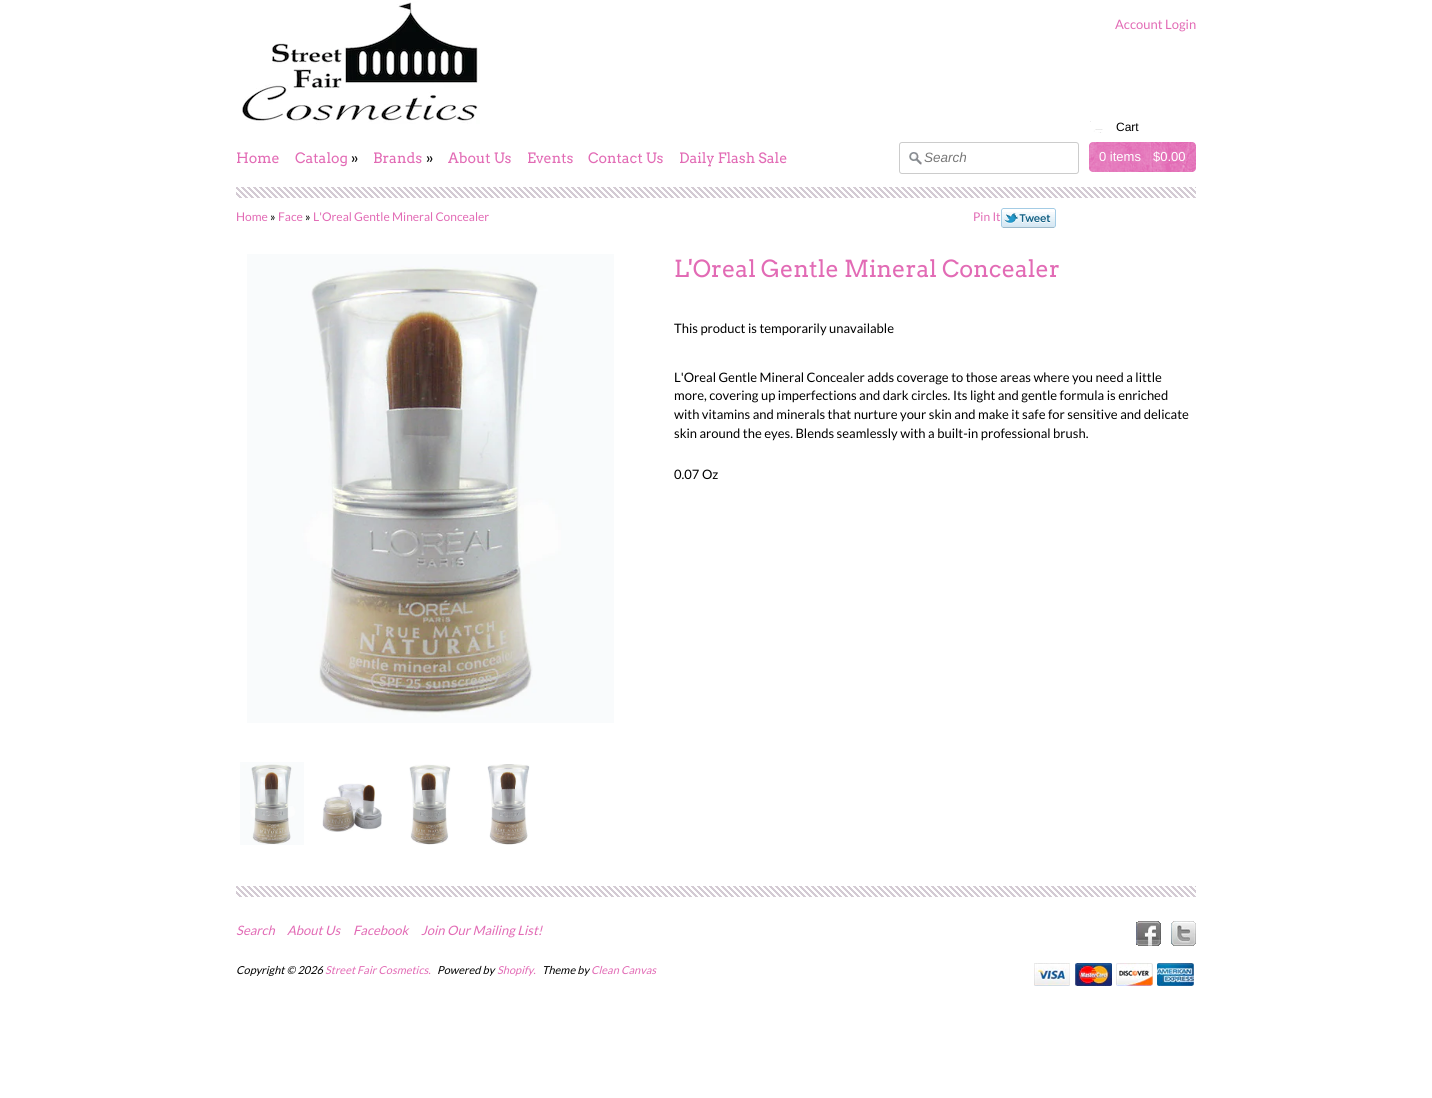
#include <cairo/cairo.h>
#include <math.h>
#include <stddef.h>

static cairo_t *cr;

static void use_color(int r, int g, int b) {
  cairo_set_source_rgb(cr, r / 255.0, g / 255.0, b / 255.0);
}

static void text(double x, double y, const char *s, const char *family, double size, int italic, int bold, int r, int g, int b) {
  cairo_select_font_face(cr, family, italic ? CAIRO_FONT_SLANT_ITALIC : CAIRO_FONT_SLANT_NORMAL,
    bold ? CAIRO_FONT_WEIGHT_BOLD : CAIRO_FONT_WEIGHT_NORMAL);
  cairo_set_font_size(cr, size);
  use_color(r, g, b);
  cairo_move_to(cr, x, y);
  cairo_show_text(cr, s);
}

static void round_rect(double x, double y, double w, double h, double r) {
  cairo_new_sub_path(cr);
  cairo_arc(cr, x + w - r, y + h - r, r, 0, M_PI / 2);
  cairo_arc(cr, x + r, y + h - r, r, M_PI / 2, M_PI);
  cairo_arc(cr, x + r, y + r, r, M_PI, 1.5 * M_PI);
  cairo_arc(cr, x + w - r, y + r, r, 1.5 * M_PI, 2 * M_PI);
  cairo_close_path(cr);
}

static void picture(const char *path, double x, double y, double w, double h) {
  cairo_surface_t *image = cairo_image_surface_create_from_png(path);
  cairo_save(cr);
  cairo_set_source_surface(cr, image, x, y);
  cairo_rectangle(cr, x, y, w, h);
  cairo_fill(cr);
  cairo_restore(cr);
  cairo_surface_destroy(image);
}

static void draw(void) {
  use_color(255, 255, 255);
  cairo_paint(cr);
  picture("img_01.png", 242, 0, 238, 124);
  picture("img_02.png", 236, 187, 960, 11);
  picture("img_03.png", 909, 152, 13, 13);
  round_rect(899.5, 142.5, 179, 31, 2.5);
  use_color(204, 204, 204);
  cairo_set_line_width(cr, 1);
  cairo_stroke(cr);
  use_color(226, 107, 181);
  round_rect(1089, 142, 107, 30, 4);
  cairo_fill(cr);
  picture("img_04.png", 1090, 121, 13, 12);
  picture("img_05.png", 1089, 142, 107, 30);
  picture("img_06.png", 1001, 208, 55, 20);
  picture("img_07.png", 247, 254, 367, 469);
  picture("img_08.png", 240, 762, 64, 83);
  picture("img_09.png", 322, 783, 60, 49);
  picture("img_10.png", 409, 764, 42, 81);
  picture("img_11.png", 487, 764, 43, 81);
  picture("img_02.png", 236, 886, 960, 11);
  picture("img_12.png", 1136, 921, 25, 25);
  picture("img_13.png", 1171, 921, 25, 25);
  picture("img_14.png", 1034, 963, 36, 23);
  picture("img_15.png", 1075, 963, 37, 23);
  picture("img_16.png", 1116, 963, 37, 23);
  picture("img_17.png", 1157, 963, 37, 23);
  text(1115, 29, "Account Login", "Lato", 13, 0, 0, 226, 107, 181);
  text(236, 163, "Home", "Arvo", 14.25, 0, 0, 226, 107, 181);
  text(295, 163, "Catalog", "Arvo", 14.25, 0, 0, 226, 107, 181);
  text(351, 163, "»", "Arvo", 14.25, 0, 0, 0, 0, 0);
  text(373, 163, "Brands", "Arvo", 14.25, 0, 0, 226, 107, 181);
  text(426, 163, "»", "Arvo", 14.25, 0, 0, 0, 0, 0);
  text(448, 163, "About Us", "Arvo", 14.25, 0, 0, 226, 107, 181);
  text(527, 163, "Events", "Arvo", 14.25, 0, 0, 226, 107, 181);
  text(588, 163, "Contact Us", "Arvo", 14.25, 0, 0, 226, 107, 181);
  text(679, 163, "Daily Flash Sale", "Arvo", 14.25, 0, 0, 226, 107, 181);
  text(924, 162, "Search", "Liberation Sans", 13.5, 1, 0, 119, 119, 119);
  text(1116, 131, "Cart", "Liberation Sans", 12, 0, 0, 0, 0, 0);
  text(1099, 161, "0 items", "Liberation Sans", 13, 0, 0, 255, 255, 255);
  text(1153, 161, "$0.00", "Liberation Sans", 13, 0, 0, 255, 255, 255);
  text(236, 221, "Home", "Lato", 12, 0, 0, 226, 107, 181);
  text(270, 221, "»", "Lato", 12, 0, 0, 0, 0, 0);
  text(278, 221, "Face", "Lato", 12, 0, 0, 226, 107, 181);
  text(305, 221, "»", "Lato", 12, 0, 0, 0, 0, 0);
  text(313, 221, "L'Oreal Gentle Mineral Concealer", "Lato", 12, 0, 0, 226, 107, 181);
  text(973, 221, "Pin It", "Lato", 12, 0, 0, 226, 107, 181);
  text(674, 277, "L'Oreal Gentle Mineral Concealer", "Arvo", 23.4, 0, 0, 226, 107, 181);
  text(674, 333, "This product is temporarily unavailable", "Lato", 13, 0, 0, 0, 0, 0);
  text(674, 382, "L'Oreal Gentle Mineral Concealer adds coverage to those areas where you need a little", "Lato", 13, 0, 0, 0, 0, 0);
  text(674, 400, "more, covering up imperfections and dark circles. Its light and gentle formula is enriched", "Lato", 13, 0, 0, 0, 0, 0);
  text(674, 419, "with vitamins and minerals that nurture your skin and make it safe for sensitive and delicate", "Lato", 13, 0, 0, 0, 0, 0);
  text(674, 438, "skin around the eyes. Blends seamlessly with a built-in professional brush.", "Lato", 13, 0, 0, 0, 0, 0);
  text(674, 479, "0.07 Oz", "Lato", 13, 0, 0, 0, 0, 0);
  text(236, 935, "Search", "Lato", 13, 1, 0, 226, 107, 181);
  text(287, 935, "About Us", "Lato", 13, 1, 0, 226, 107, 181);
  text(353, 935, "Facebook", "Lato", 13, 1, 0, 226, 107, 181);
  text(421, 935, "Join Our Mailing List!", "Lato", 13, 1, 0, 226, 107, 181);
  text(236, 974, "Copyright © 2026", "Lato", 11, 1, 0, 0, 0, 0);
  text(325, 974, "Street Fair Cosmetics.", "Lato", 11, 1, 0, 226, 107, 181);
  text(437, 974, "Powered by", "Lato", 11, 1, 0, 0, 0, 0);
  text(497, 974, "Shopify.", "Lato", 11, 1, 0, 226, 107, 181);
  text(542, 974, "Theme by", "Lato", 11, 1, 0, 0, 0, 0);
  text(591, 974, "Clean Canvas", "Lato", 11, 1, 0, 226, 107, 181);
}

int main(void) {
  cairo_surface_t *surface = cairo_image_surface_create(CAIRO_FORMAT_RGB24, 1432, 1098);
  cr = cairo_create(surface);
  cairo_font_options_t *options = cairo_font_options_create();
  cairo_font_options_set_hint_metrics(options, CAIRO_HINT_METRICS_OFF);
  cairo_font_options_set_hint_style(options, CAIRO_HINT_STYLE_NONE);
  cairo_set_font_options(cr, options);
  cairo_set_miter_limit(cr, 4);
  draw();
  cairo_surface_write_to_png(surface, "out.png");
  cairo_font_options_destroy(options);
  cairo_destroy(cr);
  cairo_surface_destroy(surface);
  return 0;
}
